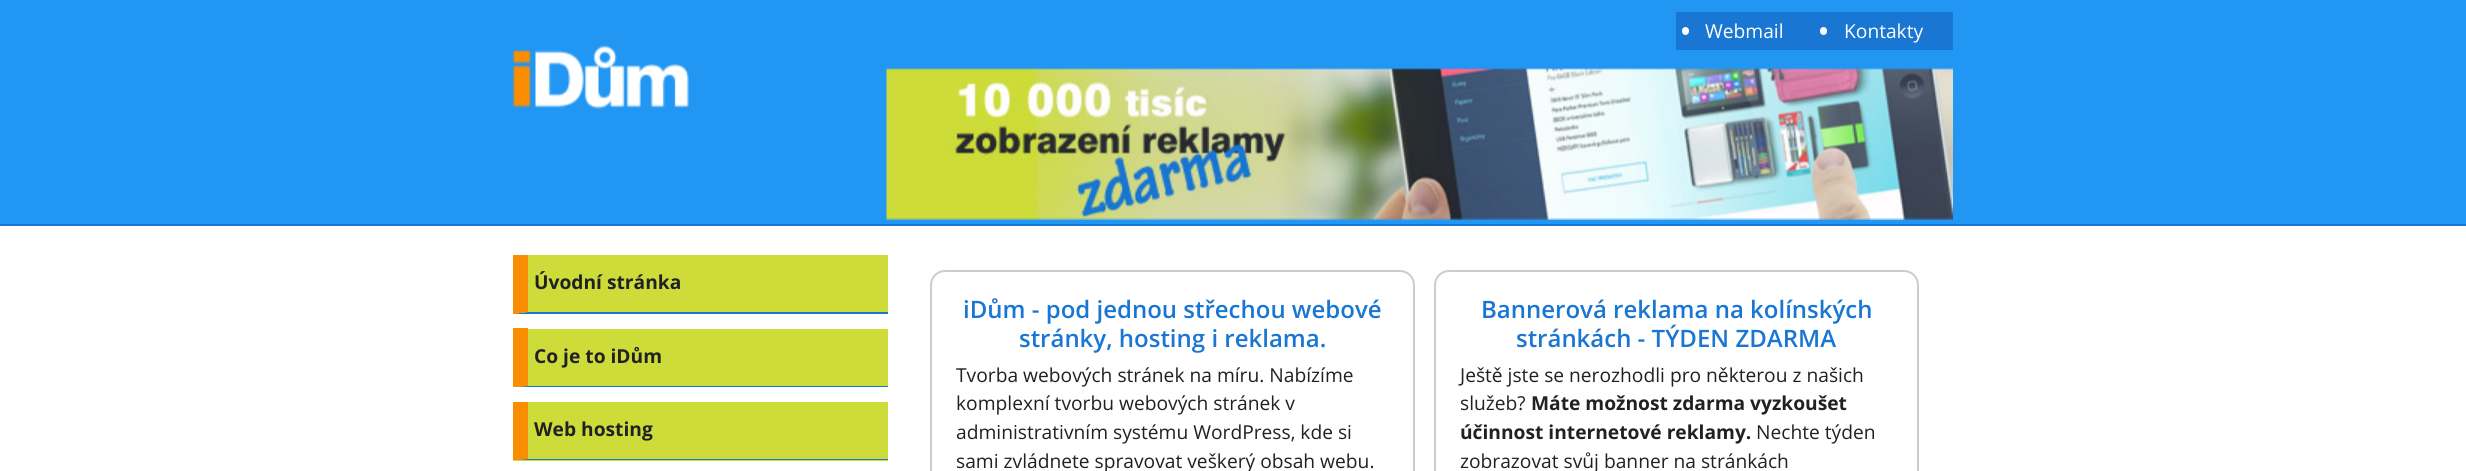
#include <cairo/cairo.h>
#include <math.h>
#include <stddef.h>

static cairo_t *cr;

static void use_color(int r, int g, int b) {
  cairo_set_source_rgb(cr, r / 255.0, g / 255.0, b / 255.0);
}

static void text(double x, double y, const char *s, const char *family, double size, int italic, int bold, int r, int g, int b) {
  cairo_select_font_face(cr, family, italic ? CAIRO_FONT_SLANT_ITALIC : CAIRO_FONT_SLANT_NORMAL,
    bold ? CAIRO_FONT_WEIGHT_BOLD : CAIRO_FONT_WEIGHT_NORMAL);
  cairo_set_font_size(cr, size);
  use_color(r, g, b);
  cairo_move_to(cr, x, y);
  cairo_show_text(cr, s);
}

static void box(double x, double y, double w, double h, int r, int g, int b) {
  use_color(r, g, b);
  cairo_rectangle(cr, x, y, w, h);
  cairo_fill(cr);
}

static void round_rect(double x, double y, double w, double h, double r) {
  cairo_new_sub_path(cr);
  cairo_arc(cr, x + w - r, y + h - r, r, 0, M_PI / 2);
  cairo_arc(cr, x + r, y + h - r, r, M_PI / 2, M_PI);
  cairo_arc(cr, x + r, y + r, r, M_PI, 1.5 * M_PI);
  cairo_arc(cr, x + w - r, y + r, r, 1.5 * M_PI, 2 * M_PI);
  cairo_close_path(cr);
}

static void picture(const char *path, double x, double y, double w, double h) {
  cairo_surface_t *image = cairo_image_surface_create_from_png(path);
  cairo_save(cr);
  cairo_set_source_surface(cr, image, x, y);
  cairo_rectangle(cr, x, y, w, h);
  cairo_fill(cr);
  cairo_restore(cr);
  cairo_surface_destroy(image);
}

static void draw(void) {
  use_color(255, 255, 255);
  cairo_paint(cr);
  box(0, 0, 2466, 224, 33, 150, 243);
  box(0, 224, 2466, 2, 25, 118, 210);
  box(1676, 12, 277, 38, 25, 118, 210);
  use_color(255, 255, 255);
  round_rect(1682, 27, 7, 8, 3.5);
  cairo_fill(cr);
  round_rect(1820, 27, 7, 8, 3.5);
  cairo_fill(cr);
  picture("img_01.png", 513, 45, 176, 64);
  picture("img_02.png", 886, 68, 1067, 152);
  box(513, 255, 375, 59, 205, 220, 57);
  use_color(25, 118, 210);
  cairo_new_path(cr);
  cairo_move_to(cr, 888, 314);
  cairo_line_to(cr, 513, 314);
  cairo_line_to(cr, 528, 312);
  cairo_line_to(cr, 888, 312);
  cairo_close_path(cr);
  cairo_fill(cr);
  use_color(251, 141, 0);
  cairo_new_path(cr);
  cairo_move_to(cr, 513, 314);
  cairo_line_to(cr, 513, 255);
  cairo_line_to(cr, 528, 255);
  cairo_line_to(cr, 528, 312);
  cairo_close_path(cr);
  cairo_fill(cr);
  box(513, 329, 375, 58, 205, 220, 57);
  use_color(25, 118, 210);
  cairo_new_path(cr);
  cairo_move_to(cr, 888, 387);
  cairo_line_to(cr, 513, 387);
  cairo_line_to(cr, 528, 386);
  cairo_line_to(cr, 888, 386);
  cairo_close_path(cr);
  cairo_fill(cr);
  use_color(251, 141, 0);
  cairo_new_path(cr);
  cairo_move_to(cr, 513, 387);
  cairo_line_to(cr, 513, 328);
  cairo_line_to(cr, 528, 328);
  cairo_line_to(cr, 528, 386);
  cairo_close_path(cr);
  cairo_fill(cr);
  box(513, 402, 375, 59, 205, 220, 57);
  use_color(25, 118, 210);
  cairo_new_path(cr);
  cairo_move_to(cr, 888, 460);
  cairo_line_to(cr, 513, 460);
  cairo_line_to(cr, 528, 459);
  cairo_line_to(cr, 888, 459);
  cairo_close_path(cr);
  cairo_fill(cr);
  use_color(251, 141, 0);
  cairo_new_path(cr);
  cairo_move_to(cr, 513, 460);
  cairo_line_to(cr, 513, 402);
  cairo_line_to(cr, 528, 402);
  cairo_line_to(cr, 528, 459);
  cairo_close_path(cr);
  cairo_fill(cr);
  round_rect(931, 271, 483, 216, 14);
  use_color(204, 204, 204);
  cairo_stroke(cr);
  round_rect(1435, 271, 483, 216, 14);
  cairo_stroke(cr);
  text(1705, 38, "Webmail", "Open Sans", 19.2, 0, 0, 255, 255, 255);
  text(1844, 38, "Kontakty", "Open Sans", 19.2, 0, 0, 255, 255, 255);
  text(534, 289, "Úvodní stránka", "Open Sans", 19.2, 0, 1, 33, 33, 33);
  text(534, 363, "Co je to iDům", "Open Sans", 19.2, 0, 1, 33, 33, 33);
  text(534, 436, "Web hosting", "Open Sans", 19.2, 0, 1, 33, 33, 33);
  text(963, 318, "iDům - pod jednou střechou webové", "Open Sans SemiBold", 24, 0, 0, 25, 118, 210);
  text(1019, 347, "stránky, hosting i reklama.", "Open Sans SemiBold", 24, 0, 0, 25, 118, 210);
  text(956, 382, "Tvorba webových stránek na míru. Nabízíme", "Open Sans", 19.2, 0, 0, 33, 33, 33);
  text(956, 410, "komplexní tvorbu webových stránek v", "Open Sans", 19.2, 0, 0, 33, 33, 33);
  text(956, 439, "administrativním systému WordPress, kde si", "Open Sans", 19.2, 0, 0, 33, 33, 33);
  text(956, 468, "sami zvládnete spravovat veškerý obsah webu.", "Open Sans", 19.2, 0, 0, 33, 33, 33);
  text(1481, 318, "Bannerová reklama na kolínských", "Open Sans SemiBold", 24, 0, 0, 25, 118, 210);
  text(1516, 347, "stránkách - TÝDEN ZDARMA", "Open Sans SemiBold", 24, 0, 0, 25, 118, 210);
  text(1460, 382, "Ještě jste se nerozhodli pro některou z našich", "Open Sans", 19.2, 0, 0, 33, 33, 33);
  text(1460, 410, "služeb?", "Open Sans", 19.2, 0, 0, 33, 33, 33);
  text(1531, 410, "Máte možnost zdarma vyzkoušet", "Open Sans", 19.2, 0, 1, 33, 33, 33);
  text(1460, 439, "účinnost internetové reklamy.", "Open Sans", 19.2, 0, 1, 33, 33, 33);
  text(1756, 439, "Nechte týden", "Open Sans", 19.2, 0, 0, 33, 33, 33);
  text(1460, 468, "zobrazovat svůj banner na stránkách", "Open Sans", 19.2, 0, 0, 33, 33, 33);
}

int main(void) {
  cairo_surface_t *surface = cairo_image_surface_create(CAIRO_FORMAT_RGB24, 2466, 471);
  cr = cairo_create(surface);
  cairo_font_options_t *options = cairo_font_options_create();
  cairo_font_options_set_hint_metrics(options, CAIRO_HINT_METRICS_OFF);
  cairo_font_options_set_hint_style(options, CAIRO_HINT_STYLE_NONE);
  cairo_set_font_options(cr, options);
  cairo_set_miter_limit(cr, 4);
  draw();
  cairo_surface_write_to_png(surface, "out.png");
  cairo_font_options_destroy(options);
  cairo_destroy(cr);
  cairo_surface_destroy(surface);
  return 0;
}
